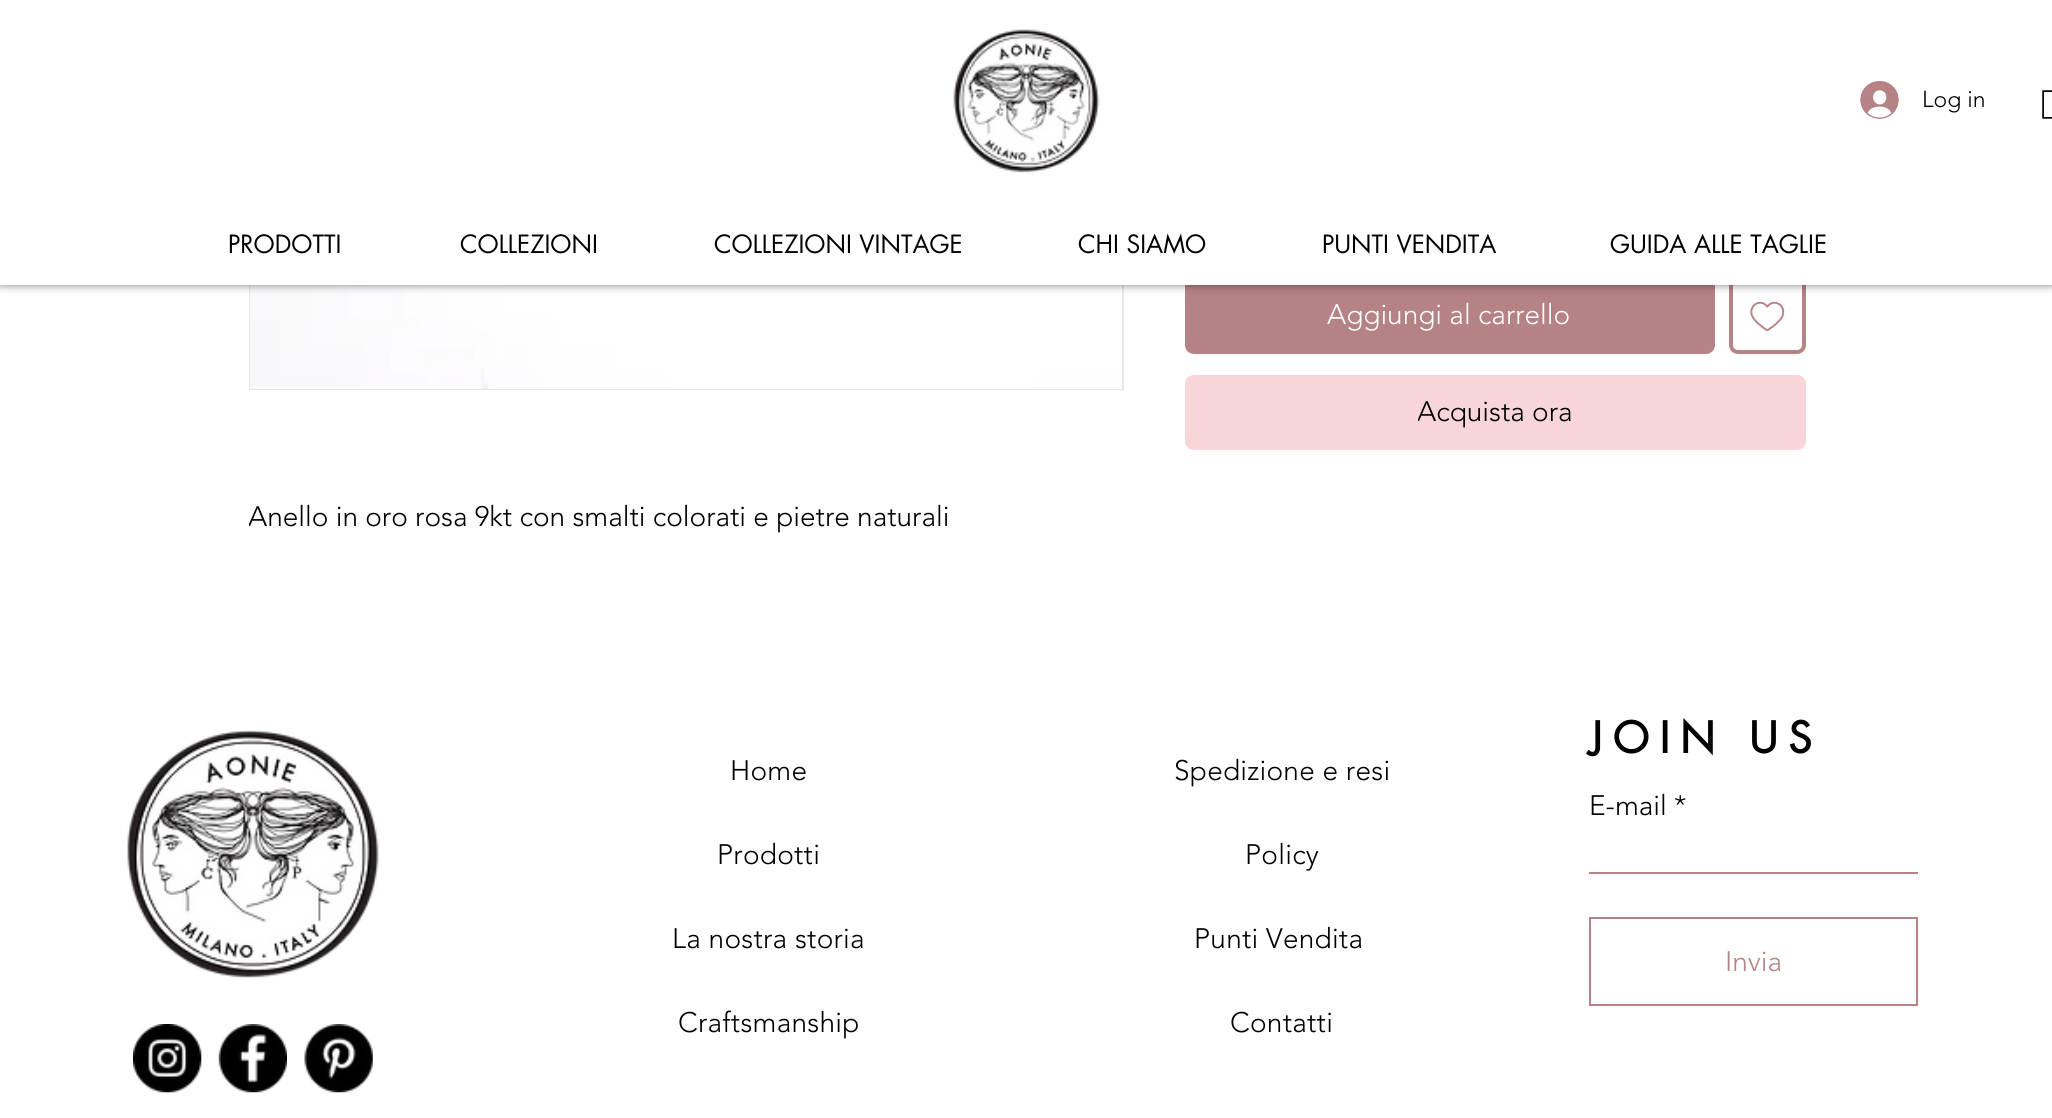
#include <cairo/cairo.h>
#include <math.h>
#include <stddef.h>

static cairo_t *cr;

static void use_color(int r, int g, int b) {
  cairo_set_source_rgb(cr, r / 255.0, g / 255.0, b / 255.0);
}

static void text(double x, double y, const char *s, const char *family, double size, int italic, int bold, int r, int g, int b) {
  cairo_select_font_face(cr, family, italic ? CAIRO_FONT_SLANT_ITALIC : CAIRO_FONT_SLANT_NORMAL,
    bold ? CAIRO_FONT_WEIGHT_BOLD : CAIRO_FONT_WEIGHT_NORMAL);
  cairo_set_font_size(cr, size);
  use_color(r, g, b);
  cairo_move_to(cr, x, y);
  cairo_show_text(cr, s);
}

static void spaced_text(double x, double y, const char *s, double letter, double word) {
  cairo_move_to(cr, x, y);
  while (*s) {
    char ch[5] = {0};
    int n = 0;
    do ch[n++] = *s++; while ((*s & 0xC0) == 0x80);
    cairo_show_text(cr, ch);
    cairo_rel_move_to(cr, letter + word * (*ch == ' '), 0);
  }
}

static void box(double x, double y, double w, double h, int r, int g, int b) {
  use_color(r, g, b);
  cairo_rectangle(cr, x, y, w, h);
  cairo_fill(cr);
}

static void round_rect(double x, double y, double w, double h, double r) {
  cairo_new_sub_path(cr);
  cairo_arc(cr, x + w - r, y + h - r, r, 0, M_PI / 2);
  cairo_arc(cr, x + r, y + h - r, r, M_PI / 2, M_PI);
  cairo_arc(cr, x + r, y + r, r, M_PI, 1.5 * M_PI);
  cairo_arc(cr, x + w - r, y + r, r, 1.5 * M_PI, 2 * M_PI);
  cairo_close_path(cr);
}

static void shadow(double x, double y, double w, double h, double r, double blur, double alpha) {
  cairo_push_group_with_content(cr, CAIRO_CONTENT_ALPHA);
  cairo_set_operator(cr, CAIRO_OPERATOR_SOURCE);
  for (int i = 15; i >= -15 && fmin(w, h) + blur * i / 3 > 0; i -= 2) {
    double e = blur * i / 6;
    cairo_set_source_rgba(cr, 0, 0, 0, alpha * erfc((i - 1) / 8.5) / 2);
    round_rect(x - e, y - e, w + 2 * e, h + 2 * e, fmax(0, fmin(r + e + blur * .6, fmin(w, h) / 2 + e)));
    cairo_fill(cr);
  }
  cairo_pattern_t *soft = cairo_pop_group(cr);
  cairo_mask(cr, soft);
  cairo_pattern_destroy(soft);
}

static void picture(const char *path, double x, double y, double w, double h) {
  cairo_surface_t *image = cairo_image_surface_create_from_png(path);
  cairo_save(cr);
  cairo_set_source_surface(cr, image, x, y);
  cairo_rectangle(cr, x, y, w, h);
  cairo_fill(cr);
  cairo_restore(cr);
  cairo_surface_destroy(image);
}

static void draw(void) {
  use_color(255, 255, 255);
  cairo_paint(cr);
  use_color(181, 130, 134);
  round_rect(1185, 277, 530, 77, 9);
  cairo_fill(cr);
  round_rect(1731, 279, 73, 73, 7);
  cairo_set_line_width(cr, 4);
  cairo_stroke(cr);
  cairo_rectangle(cr, 250, -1, 873, 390);
  use_color(232, 230, 230);
  cairo_set_line_width(cr, 2);
  cairo_stroke(cr);
  picture("img_05.png", 250, 285, 872, 104);
  use_color(0, 0, 0);
  shadow(0, 0, 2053, 285, 0, 4.5, 0.5);
  box(0, 0, 2052, 285, 255, 255, 255);
  picture("img_01.png", 953, 29, 147, 144);
  picture("img_02.png", 1860, 81, 39, 38);
  picture("img_03.png", 2042, 90, 10, 29);
  picture("img_04.png", 1750, 301, 35, 30);
  use_color(248, 213, 216);
  round_rect(1185, 375, 621, 75, 9);
  cairo_fill(cr);
  picture("img_06.png", 127, 730, 252, 248);
  picture("img_07.png", 133, 1024, 69, 69);
  picture("img_08.png", 218, 1024, 69, 69);
  picture("img_09.png", 304, 1024, 69, 69);
  box(1589, 872, 329, 2, 181, 130, 134);
  cairo_rectangle(cr, 1590, 918, 327, 87);
  cairo_stroke(cr);
  text(1922, 107, "Log in", "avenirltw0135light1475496 Light", 23, 0, 0, 0, 0, 0);
  text(228, 253, "PRODOTTI", "futura", 24.5, 0, 0, 0, 0, 0);
  text(460, 253, "COLLEZIONI", "futura", 24.5, 0, 0, 0, 0, 0);
  text(714, 253, "COLLEZIONI VINTAGE", "futura", 24.5, 0, 0, 0, 0, 0);
  text(1078, 253, "CHI SIAMO", "futura", 24.5, 0, 0, 0, 0, 0);
  text(1322, 253, "PUNTI VENDITA", "futura", 24.5, 0, 0, 0, 0, 0);
  text(1610, 253, "GUIDA ALLE TAGLIE", "futura", 24.5, 0, 0, 0, 0, 0);
  text(1327, 324, "Aggiungi al carrello", "avenirltw0135light1475496 Light", 28, 0, 0, 255, 255, 255);
  cairo_save(cr);
  cairo_rectangle(cr, 1418, 392, 154, 40);
  cairo_clip(cr);
  text(1417, 421, "Acquista ora", "avenirltw0135light1475496 Light", 28, 0, 0, 0, 0, 0);
  cairo_restore(cr);
  cairo_save(cr);
  cairo_rectangle(cr, 249, 495, 700, 84);
  cairo_clip(cr);
  text(248, 526, "Anello in oro rosa 9kt con smalti colorati e pietre naturali", "avenirltw0135light1475496 Light", 28, 0, 0, 0, 0, 0);
  cairo_restore(cr);
  use_color(0, 0, 0);
  spaced_text(730, 780, "Home", 0.25, 0);
  spaced_text(717, 864, "Prodotti", 0.25, 0);
  spaced_text(672, 948, "La nostra storia", 0.25, 0);
  spaced_text(678, 1032, "Craftsmanship", 0.25, 0);
  spaced_text(1174, 780, "Spedizione e resi", 0.25, 0);
  spaced_text(1245, 864, "Policy", 0.25, 0);
  spaced_text(1194, 948, "Punti Vendita", 0.25, 0);
  spaced_text(1230, 1032, "Contatti", 0.25, 0);
  cairo_select_font_face(cr, "futura", CAIRO_FONT_SLANT_NORMAL, CAIRO_FONT_WEIGHT_BOLD);
  cairo_set_font_size(cr, 42);
  spaced_text(1589, 753, "JOIN US", 10.5, 0);
  text(1589, 815, "E-mail *", "avenirltw0135light1475496 Light", 28, 0, 0, 0, 0, 0);
  text(1725, 971, "Invia", "avenirltw0135light1475496 Light", 28, 0, 0, 181, 130, 134);
}

int main(void) {
  cairo_surface_t *surface = cairo_image_surface_create(CAIRO_FORMAT_RGB24, 2052, 1118);
  cr = cairo_create(surface);
  cairo_font_options_t *options = cairo_font_options_create();
  cairo_font_options_set_hint_metrics(options, CAIRO_HINT_METRICS_OFF);
  cairo_font_options_set_hint_style(options, CAIRO_HINT_STYLE_NONE);
  cairo_set_font_options(cr, options);
  cairo_set_miter_limit(cr, 4);
  draw();
  cairo_surface_write_to_png(surface, "out.png");
  cairo_font_options_destroy(options);
  cairo_destroy(cr);
  cairo_surface_destroy(surface);
  return 0;
}
